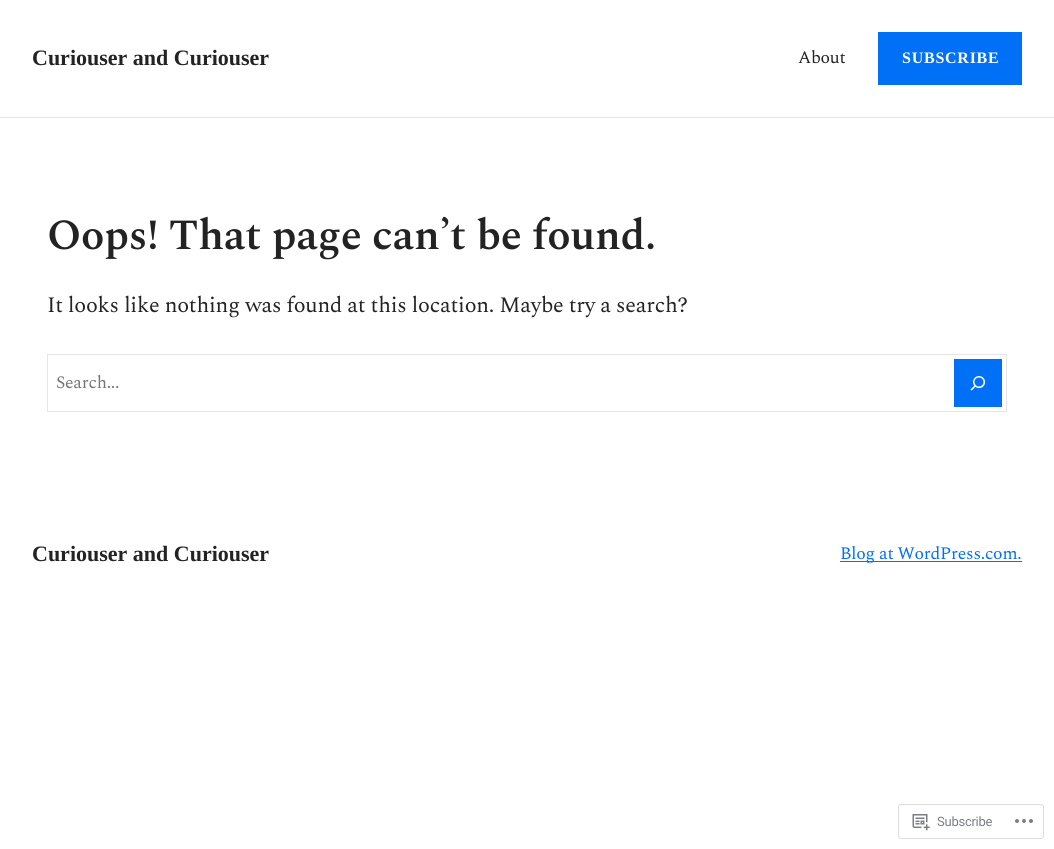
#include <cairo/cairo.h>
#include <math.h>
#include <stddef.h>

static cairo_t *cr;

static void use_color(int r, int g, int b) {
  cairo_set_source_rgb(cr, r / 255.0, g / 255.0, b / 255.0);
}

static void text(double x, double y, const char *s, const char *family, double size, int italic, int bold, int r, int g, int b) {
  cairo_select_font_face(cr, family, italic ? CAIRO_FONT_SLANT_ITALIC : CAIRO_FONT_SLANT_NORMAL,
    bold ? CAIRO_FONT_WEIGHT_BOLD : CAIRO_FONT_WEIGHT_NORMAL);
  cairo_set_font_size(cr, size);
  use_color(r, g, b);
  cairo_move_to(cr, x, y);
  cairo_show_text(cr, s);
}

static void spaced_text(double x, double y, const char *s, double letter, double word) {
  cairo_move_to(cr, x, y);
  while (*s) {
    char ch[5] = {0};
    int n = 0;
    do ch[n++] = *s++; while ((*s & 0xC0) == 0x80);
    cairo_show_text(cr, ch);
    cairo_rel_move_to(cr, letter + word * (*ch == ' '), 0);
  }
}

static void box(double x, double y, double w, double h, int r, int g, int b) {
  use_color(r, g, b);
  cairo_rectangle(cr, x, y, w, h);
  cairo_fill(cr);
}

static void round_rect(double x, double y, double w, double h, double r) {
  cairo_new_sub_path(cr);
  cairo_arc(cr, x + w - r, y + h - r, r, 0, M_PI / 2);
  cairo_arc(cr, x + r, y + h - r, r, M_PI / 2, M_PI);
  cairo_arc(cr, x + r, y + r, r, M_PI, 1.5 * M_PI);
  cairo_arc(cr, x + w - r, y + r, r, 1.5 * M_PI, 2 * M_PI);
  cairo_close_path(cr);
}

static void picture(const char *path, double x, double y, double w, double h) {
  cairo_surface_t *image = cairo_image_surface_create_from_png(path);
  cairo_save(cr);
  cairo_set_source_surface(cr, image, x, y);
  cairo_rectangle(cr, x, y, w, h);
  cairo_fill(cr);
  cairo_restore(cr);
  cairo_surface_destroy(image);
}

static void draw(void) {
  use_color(255, 255, 255);
  cairo_paint(cr);
  box(0, 117, 1054, 1, 229, 229, 229);
  box(878, 32, 144, 53, 0, 112, 246);
  cairo_rectangle(cr, 47.5, 354.5, 959, 57);
  use_color(229, 229, 229);
  cairo_set_line_width(cr, 1);
  cairo_stroke(cr);
  box(954, 359, 48, 48, 0, 112, 246);
  picture("img_01.png", 970, 376, 16, 15);
  box(840, 561, 182, 1, 0, 112, 246);
  round_rect(898.5, 804.5, 145, 34, 2.5);
  use_color(221, 221, 223);
  cairo_stroke(cr);
  picture("img_02.png", 912, 814, 18, 17);
  picture("img_03.png", 1015, 819, 18, 4);
  text(32, 65, "Curiouser and Curiouser", "Liberation Serif", 22, 0, 1, 35, 35, 35);
  cairo_select_font_face(cr, "Spectral", CAIRO_FONT_SLANT_NORMAL, CAIRO_FONT_WEIGHT_NORMAL);
  cairo_set_font_size(cr, 17.6);
  spaced_text(798, 63, "About", -0.25, 0);
  cairo_select_font_face(cr, "Liberation Serif", CAIRO_FONT_SLANT_NORMAL, CAIRO_FONT_WEIGHT_BOLD);
  cairo_set_font_size(cr, 16);
  use_color(255, 255, 255);
  spaced_text(902, 63, "SUBSCRIBE", 0.75, 0);
  cairo_select_font_face(cr, "Spectral SemiBold", CAIRO_FONT_SLANT_NORMAL, CAIRO_FONT_WEIGHT_NORMAL);
  cairo_set_font_size(cr, 43);
  use_color(35, 35, 35);
  spaced_text(47, 249, "Oops! That page can’t be found.", -0.25, 0);
  cairo_select_font_face(cr, "Spectral", CAIRO_FONT_SLANT_NORMAL, CAIRO_FONT_WEIGHT_NORMAL);
  cairo_set_font_size(cr, 22);
  spaced_text(47, 312, "It looks like nothing was found at this location. Maybe try a search?", -0.25, 0);
  cairo_set_font_size(cr, 17.6);
  use_color(117, 117, 117);
  spaced_text(56, 388, "Search...", -0.25, 0);
  text(32, 561, "Curiouser and Curiouser", "Liberation Serif", 22, 0, 1, 35, 35, 35);
  cairo_select_font_face(cr, "Spectral", CAIRO_FONT_SLANT_NORMAL, CAIRO_FONT_WEIGHT_NORMAL);
  cairo_set_font_size(cr, 17.6);
  use_color(0, 112, 246);
  spaced_text(840, 559, "Blog at WordPress.com.", -0.25, 0);
  cairo_select_font_face(cr, "Roboto", CAIRO_FONT_SLANT_NORMAL, CAIRO_FONT_WEIGHT_NORMAL);
  cairo_set_font_size(cr, 13);
  use_color(123, 127, 133);
  spaced_text(937, 826, "Subscribe", -0.25, 0);
}

int main(void) {
  cairo_surface_t *surface = cairo_image_surface_create(CAIRO_FORMAT_RGB24, 1054, 849);
  cr = cairo_create(surface);
  cairo_font_options_t *options = cairo_font_options_create();
  cairo_font_options_set_hint_metrics(options, CAIRO_HINT_METRICS_OFF);
  cairo_font_options_set_hint_style(options, CAIRO_HINT_STYLE_NONE);
  cairo_set_font_options(cr, options);
  cairo_set_miter_limit(cr, 4);
  draw();
  cairo_surface_write_to_png(surface, "out.png");
  cairo_font_options_destroy(options);
  cairo_destroy(cr);
  cairo_surface_destroy(surface);
  return 0;
}
